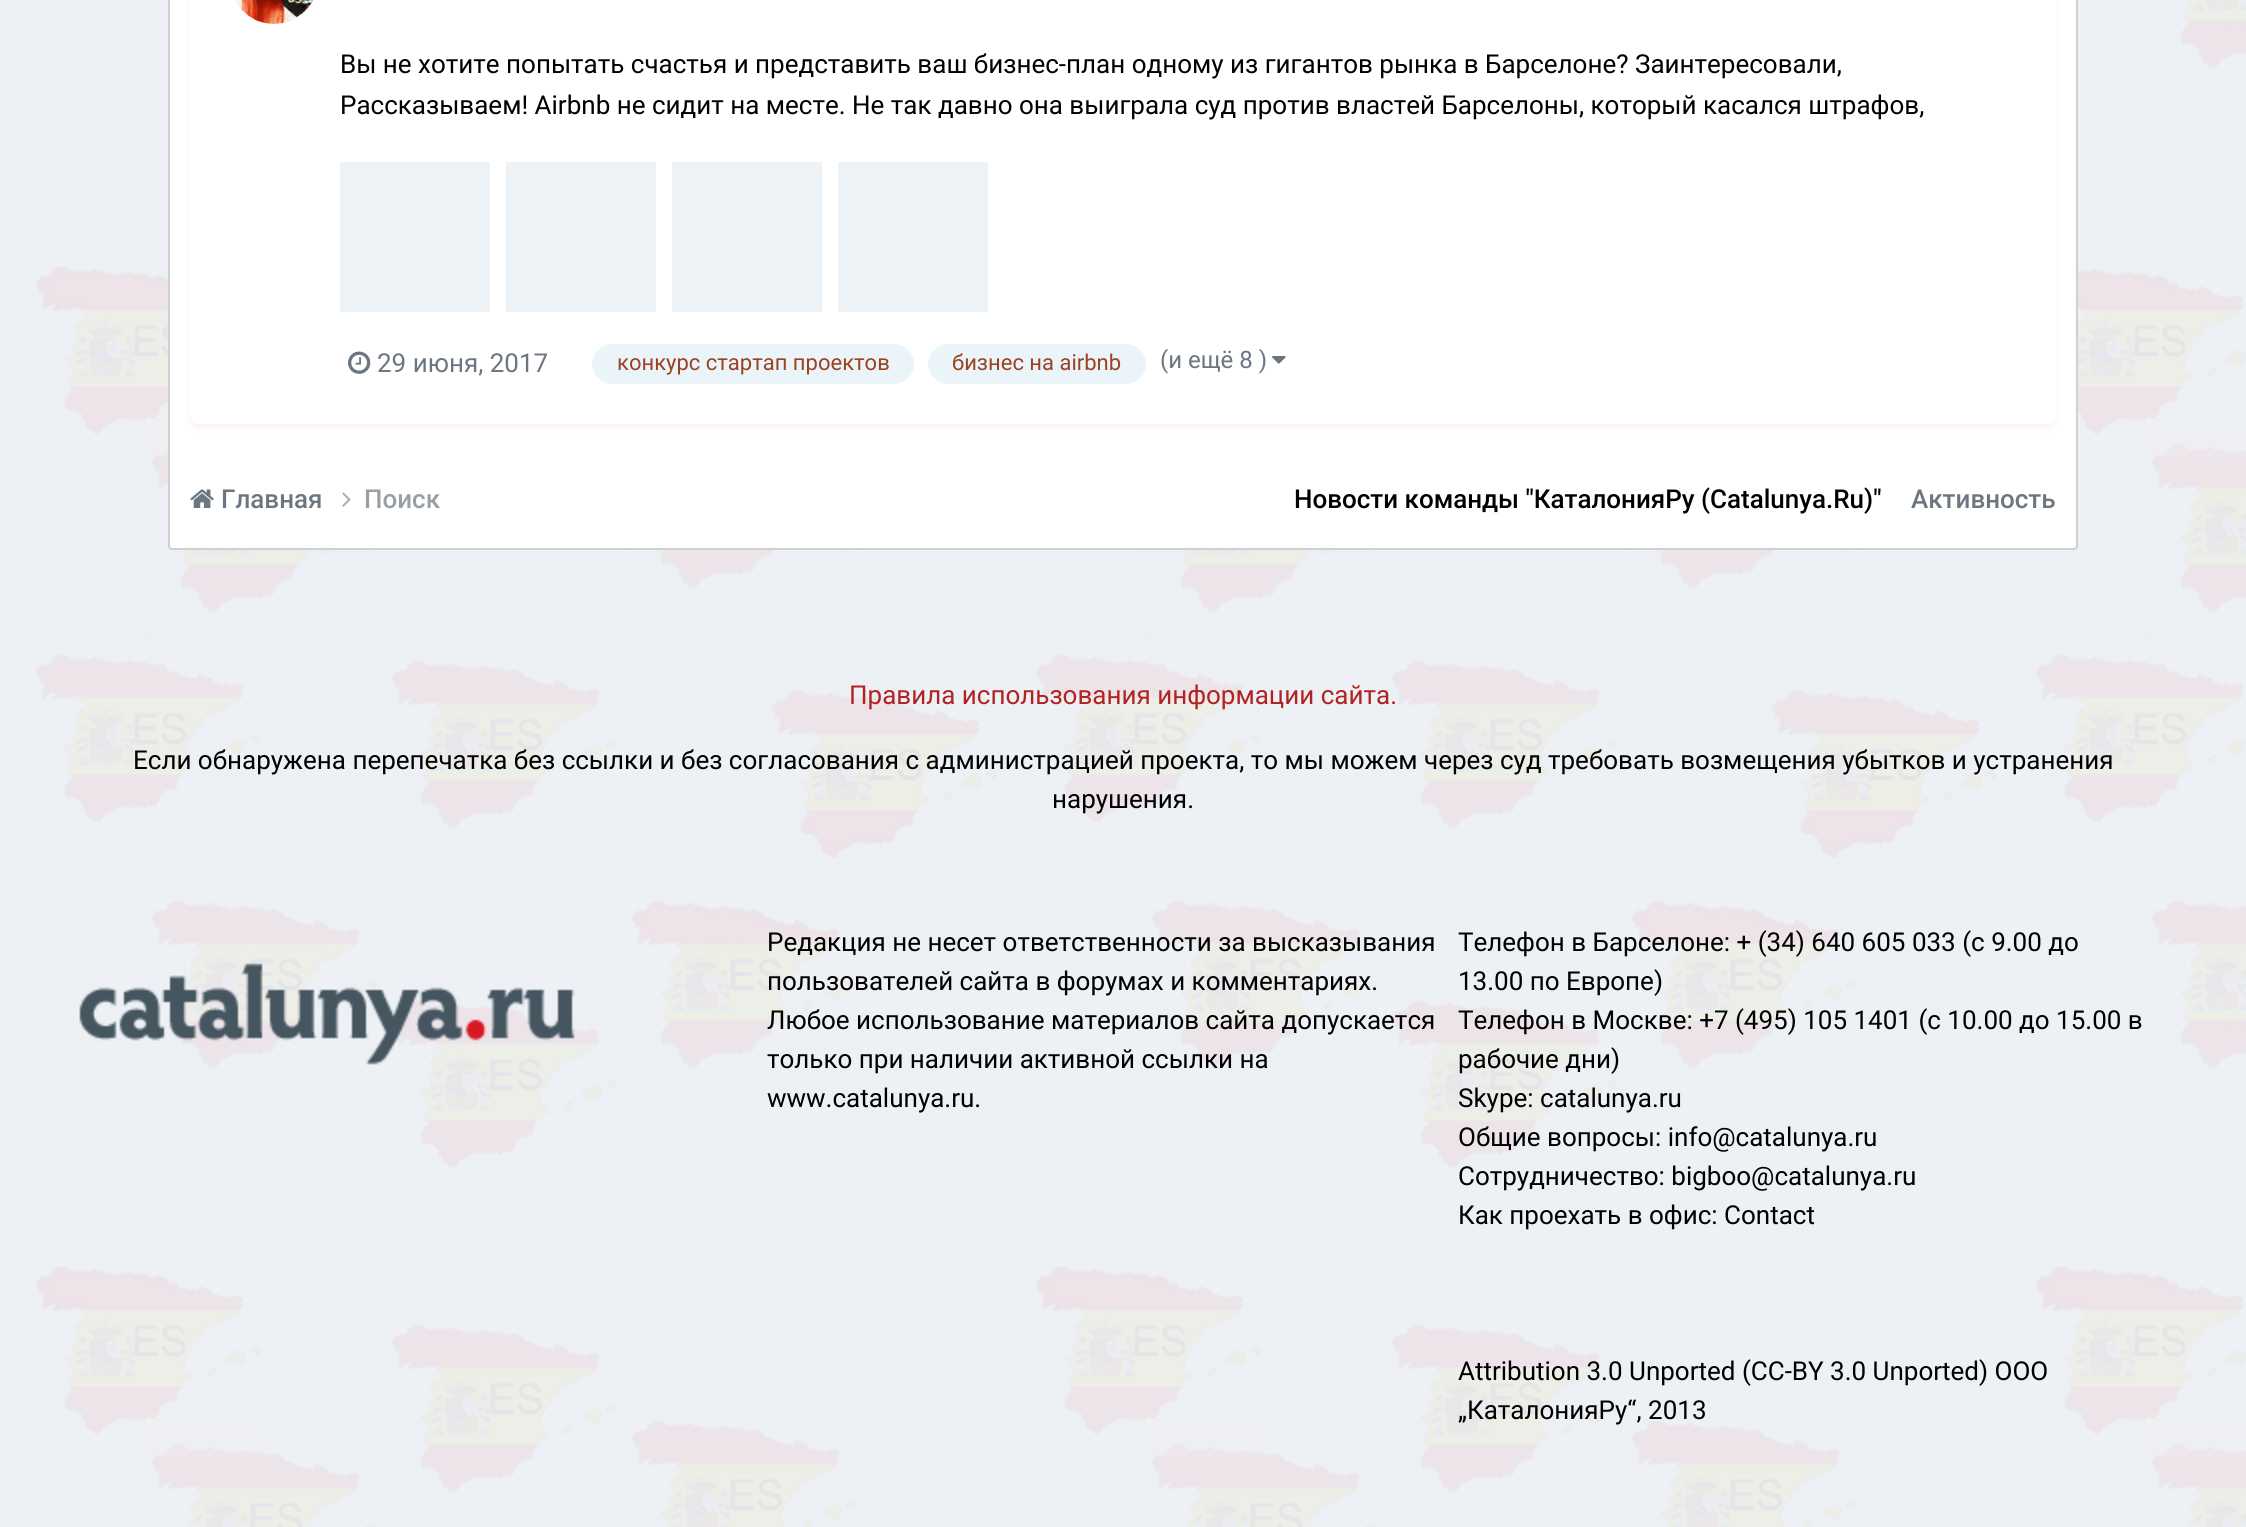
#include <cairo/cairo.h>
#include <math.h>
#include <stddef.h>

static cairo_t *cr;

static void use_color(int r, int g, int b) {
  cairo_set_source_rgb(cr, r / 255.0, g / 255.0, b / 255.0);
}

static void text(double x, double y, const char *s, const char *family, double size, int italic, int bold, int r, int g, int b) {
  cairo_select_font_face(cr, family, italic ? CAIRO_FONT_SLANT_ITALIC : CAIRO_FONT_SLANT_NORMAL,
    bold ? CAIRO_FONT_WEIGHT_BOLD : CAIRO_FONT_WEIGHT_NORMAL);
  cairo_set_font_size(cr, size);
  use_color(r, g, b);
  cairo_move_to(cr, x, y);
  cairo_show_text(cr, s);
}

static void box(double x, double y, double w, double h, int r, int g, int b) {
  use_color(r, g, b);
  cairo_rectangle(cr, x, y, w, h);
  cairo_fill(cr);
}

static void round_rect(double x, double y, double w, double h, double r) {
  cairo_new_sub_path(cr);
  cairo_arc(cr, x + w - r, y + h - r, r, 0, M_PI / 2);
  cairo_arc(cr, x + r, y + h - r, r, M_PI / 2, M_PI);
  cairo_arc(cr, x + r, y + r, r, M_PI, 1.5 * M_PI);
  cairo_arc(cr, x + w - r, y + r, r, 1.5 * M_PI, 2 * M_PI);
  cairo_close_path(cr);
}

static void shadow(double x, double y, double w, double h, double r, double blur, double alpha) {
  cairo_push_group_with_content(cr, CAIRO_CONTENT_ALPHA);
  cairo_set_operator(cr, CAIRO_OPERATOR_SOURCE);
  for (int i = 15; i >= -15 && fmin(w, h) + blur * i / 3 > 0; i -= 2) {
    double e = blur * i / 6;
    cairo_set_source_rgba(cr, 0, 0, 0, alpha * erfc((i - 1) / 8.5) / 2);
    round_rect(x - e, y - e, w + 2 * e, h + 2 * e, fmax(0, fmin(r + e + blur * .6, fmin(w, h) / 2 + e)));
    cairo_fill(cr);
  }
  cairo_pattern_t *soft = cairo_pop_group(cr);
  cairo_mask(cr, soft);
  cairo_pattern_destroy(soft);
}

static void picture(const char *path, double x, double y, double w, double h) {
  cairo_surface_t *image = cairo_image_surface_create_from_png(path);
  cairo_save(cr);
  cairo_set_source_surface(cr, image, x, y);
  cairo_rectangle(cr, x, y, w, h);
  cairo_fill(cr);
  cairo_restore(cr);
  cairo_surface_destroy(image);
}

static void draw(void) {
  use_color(237, 240, 244);
  cairo_paint(cr);
  picture("img_01.png", 35, 0, 2211, 1527);
  use_color(255, 255, 255);
  round_rect(169, -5, 1908, 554, 3);
  cairo_fill_preserve(cr);
  use_color(207, 207, 207);
  cairo_stroke(cr);
  use_color(215, 23, 31);
  shadow(192, -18, 1862, 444, 6, 4, 0.1);
  use_color(255, 255, 255);
  round_rect(190, -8, 1866, 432, 8);
  cairo_fill(cr);
  picture("img_02.png", 235, 0, 78, 24);
  box(340, 162, 150, 150, 237, 242, 247);
  box(506, 162, 150, 150, 237, 242, 247);
  box(672, 162, 150, 150, 237, 242, 247);
  box(838, 162, 150, 150, 237, 242, 247);
  picture("img_03.png", 348, 351, 23, 23);
  use_color(235, 244, 249);
  round_rect(592, 344, 322, 40, 20);
  cairo_fill(cr);
  round_rect(928, 344, 218, 40, 20);
  cairo_fill(cr);
  picture("img_04.png", 1272, 356, 14, 8);
  picture("img_05.png", 190, 489, 24, 19);
  picture("img_06.png", 342, 492, 9, 15);
  picture("img_07.png", 79, 963, 496, 102);
  text(340, 73, "Вы не хотите попытать счастья и представить ваш бизнес-план одному из гигантов рынка в Барселоне? Заинтересовали,", "Roboto", 26, 0, 0, 0, 0, 0);
  text(340, 114, "Рассказываем! Airbnb не сидит на месте. Не так давно она выиграла суд против властей Барселоны, который касался штрафов,", "Roboto", 26, 0, 0, 0, 0, 0);
  text(377, 372, "29 июня, 2017", "Roboto", 26, 0, 0, 108, 118, 128);
  text(617, 370, "конкурс стартап проектов", "Roboto", 22, 0, 0, 156, 66, 33);
  text(952, 370, "бизнес на airbnb", "Roboto", 22, 0, 0, 156, 66, 33);
  text(1160, 368, "(и ещё 8 )", "Roboto", 24, 0, 0, 108, 118, 128);
  text(221, 508, "Главная", "Roboto Medium", 26, 0, 0, 108, 118, 128);
  text(364, 508, "Поиск", "Roboto Medium", 26, 0, 0, 152, 159, 166);
  text(1294, 508, "Новости команды \"КаталонияРу (Catalunya.Ru)\"", "Roboto Medium", 26, 0, 0, 0, 0, 0);
  text(1911, 508, "Активность", "Roboto Medium", 26, 0, 0, 108, 118, 128);
  text(849, 704, "Правила использования информации сайта.", "Roboto", 26, 0, 0, 178, 34, 34);
  text(133, 769, "Если обнаружена перепечатка без ссылки и без согласования с администрацией проекта, то мы можем через суд требовать возмещения убытков и устранения", "Roboto", 26, 0, 0, 0, 0, 0);
  text(1052, 808, "нарушения.", "Roboto", 26, 0, 0, 0, 0, 0);
  text(767, 951, "Редакция не несет ответственности за высказывания", "Roboto", 26, 0, 0, 0, 0, 0);
  text(767, 990, "пользователей сайта в форумах и комментариях.", "Roboto", 26, 0, 0, 0, 0, 0);
  text(767, 1029, "Любое использование материалов сайта допускается", "Roboto", 26, 0, 0, 0, 0, 0);
  text(767, 1068, "только при наличии активной ссылки на", "Roboto", 26, 0, 0, 0, 0, 0);
  text(767, 1107, "www.catalunya.ru.", "Roboto", 26, 0, 0, 0, 0, 0);
  text(1458, 951, "Телефон в Барселоне: + (34) 640 605 033 (с 9.00 до", "Roboto", 26, 0, 0, 0, 0, 0);
  text(1458, 990, "13.00 по Европе)", "Roboto", 26, 0, 0, 0, 0, 0);
  text(1458, 1029, "Телефон в Москве: +7 (495) 105 1401 (с 10.00 до 15.00 в", "Roboto", 26, 0, 0, 0, 0, 0);
  text(1458, 1068, "рабочие дни)", "Roboto", 26, 0, 0, 0, 0, 0);
  text(1458, 1107, "Skype: catalunya.ru", "Roboto", 26, 0, 0, 0, 0, 0);
  text(1458, 1146, "Общие вопросы: info@catalunya.ru", "Roboto", 26, 0, 0, 0, 0, 0);
  text(1458, 1185, "Сотрудничество: bigboo@catalunya.ru", "Roboto", 26, 0, 0, 0, 0, 0);
  text(1458, 1224, "Как проехать в офис: Сontact", "Roboto", 26, 0, 0, 0, 0, 0);
  text(1458, 1380, "Attribution 3.0 Unported (CC-BY 3.0 Unported) ООО", "Roboto", 26, 0, 0, 0, 0, 0);
  text(1458, 1419, "„КаталонияРу“, 2013", "Roboto", 26, 0, 0, 0, 0, 0);
}

int main(void) {
  cairo_surface_t *surface = cairo_image_surface_create(CAIRO_FORMAT_RGB24, 2246, 1527);
  cr = cairo_create(surface);
  cairo_font_options_t *options = cairo_font_options_create();
  cairo_font_options_set_hint_metrics(options, CAIRO_HINT_METRICS_OFF);
  cairo_font_options_set_hint_style(options, CAIRO_HINT_STYLE_NONE);
  cairo_set_font_options(cr, options);
  cairo_set_miter_limit(cr, 4);
  draw();
  cairo_surface_write_to_png(surface, "out.png");
  cairo_font_options_destroy(options);
  cairo_destroy(cr);
  cairo_surface_destroy(surface);
  return 0;
}
